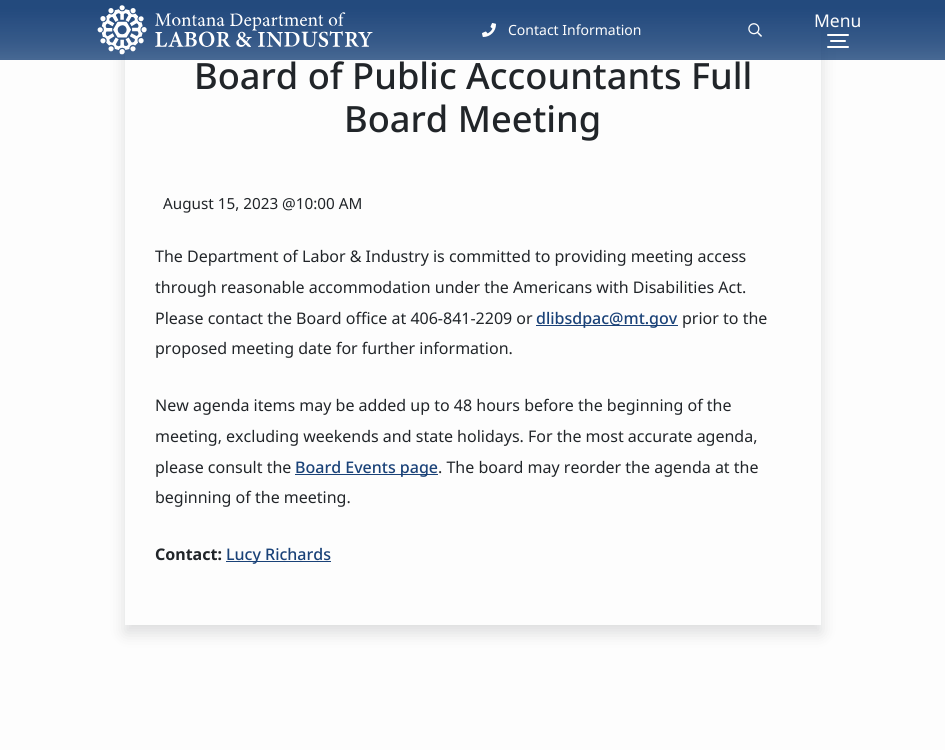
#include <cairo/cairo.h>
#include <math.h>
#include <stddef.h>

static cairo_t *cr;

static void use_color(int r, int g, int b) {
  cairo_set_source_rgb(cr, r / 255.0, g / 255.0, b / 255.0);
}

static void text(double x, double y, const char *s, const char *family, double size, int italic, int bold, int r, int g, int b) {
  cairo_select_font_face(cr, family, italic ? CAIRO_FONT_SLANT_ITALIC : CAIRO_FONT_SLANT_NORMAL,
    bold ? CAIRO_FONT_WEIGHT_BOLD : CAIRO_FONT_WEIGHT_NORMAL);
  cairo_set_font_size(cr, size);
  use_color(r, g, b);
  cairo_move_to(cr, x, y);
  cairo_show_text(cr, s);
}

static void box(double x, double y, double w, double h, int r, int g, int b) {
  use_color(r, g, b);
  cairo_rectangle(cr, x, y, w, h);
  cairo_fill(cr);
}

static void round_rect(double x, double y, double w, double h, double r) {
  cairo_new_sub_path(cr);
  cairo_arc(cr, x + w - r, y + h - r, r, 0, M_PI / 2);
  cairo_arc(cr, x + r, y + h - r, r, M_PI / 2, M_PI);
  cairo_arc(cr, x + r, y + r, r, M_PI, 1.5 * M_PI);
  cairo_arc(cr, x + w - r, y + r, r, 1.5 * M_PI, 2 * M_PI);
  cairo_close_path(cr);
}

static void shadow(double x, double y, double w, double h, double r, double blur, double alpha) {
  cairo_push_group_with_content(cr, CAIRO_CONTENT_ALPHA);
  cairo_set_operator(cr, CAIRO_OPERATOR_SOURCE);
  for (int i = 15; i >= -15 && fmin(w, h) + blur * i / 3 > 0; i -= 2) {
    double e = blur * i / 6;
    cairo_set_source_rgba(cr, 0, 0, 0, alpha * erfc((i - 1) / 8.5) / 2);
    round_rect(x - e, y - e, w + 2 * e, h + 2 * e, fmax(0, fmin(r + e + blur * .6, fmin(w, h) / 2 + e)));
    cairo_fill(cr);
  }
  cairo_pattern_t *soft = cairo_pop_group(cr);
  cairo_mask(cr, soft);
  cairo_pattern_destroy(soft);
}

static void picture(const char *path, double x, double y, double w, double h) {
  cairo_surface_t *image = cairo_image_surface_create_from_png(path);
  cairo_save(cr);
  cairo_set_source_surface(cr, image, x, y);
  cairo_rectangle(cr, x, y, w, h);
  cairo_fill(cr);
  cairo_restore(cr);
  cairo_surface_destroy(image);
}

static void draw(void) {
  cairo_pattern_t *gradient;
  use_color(253, 253, 253);
  cairo_paint(cr);
  cairo_save(cr);
  cairo_set_fill_rule(cr, CAIRO_FILL_RULE_EVEN_ODD);
  cairo_new_path(cr);
  cairo_move_to(cr, 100, 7);
  cairo_line_to(cr, 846, 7);
  cairo_line_to(cr, 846, 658);
  cairo_line_to(cr, 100, 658);
  cairo_close_path(cr);
  cairo_move_to(cr, 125, 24);
  cairo_line_to(cr, 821, 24);
  cairo_line_to(cr, 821, 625);
  cairo_line_to(cr, 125, 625);
  cairo_close_path(cr);
  cairo_clip(cr);
  use_color(33, 37, 41);
  shadow(125, 32, 696, 601, 0, 8, 0.15);
  cairo_restore(cr);
  cairo_set_source_rgba(cr, 0.102, 0.259, 0.471, 0.8);
  cairo_rectangle(cr, 0, 0, 945, 60);
  cairo_fill(cr);
  gradient = cairo_pattern_create_linear(473, 0, 473, 60);
  cairo_pattern_add_color_stop_rgba(gradient, 0, 0.102, 0.259, 0.471, 0.8);
  cairo_pattern_add_color_stop_rgba(gradient, 0.15, 0.102, 0.259, 0.471, 0.8);
  cairo_pattern_add_color_stop_rgba(gradient, 0.66, 0.102, 0.259, 0.471, 0.4);
  cairo_pattern_add_color_stop_rgba(gradient, 1, 0.102, 0.259, 0.471, 0);
  cairo_set_source(cr, gradient);
  cairo_pattern_destroy(gradient);
  cairo_rectangle(cr, 0, 0, 945, 58);
  cairo_fill(cr);
  picture("img_01.png", 97, 5, 276, 50);
  use_color(255, 255, 255);
  round_rect(827, 34, 22, 2, 1);
  cairo_fill(cr);
  round_rect(830, 40, 16, 2, 1);
  cairo_fill(cr);
  round_rect(827, 46, 22, 2, 1);
  cairo_fill(cr);
  picture("img_02.png", 482, 23, 14, 14);
  picture("img_03.png", 748, 23, 14, 14);
  box(536, 325, 142, 1, 26, 66, 120);
  box(295, 474, 143, 1, 26, 66, 120);
  box(226, 561, 105, 1, 26, 66, 120);
  text(814, 27, "Menu", "Noto Sans", 17.5, 0, 0, 253, 253, 253);
  text(508, 35, "Contact Information", "Noto Sans", 14, 0, 0, 253, 253, 253);
  text(194, 89, "Board of Public Accountants Full", "Noto Sans Medium", 36.2, 0, 0, 33, 37, 41);
  text(344, 132, "Board Meeting", "Noto Sans Medium", 36.2, 0, 0, 33, 37, 41);
  text(163, 209, "August 15, 2023 @10:00 AM", "Noto Sans", 15.25, 0, 0, 33, 37, 41);
  text(155, 262, "The Department of Labor & Industry is committed to providing meeting access", "Noto Sans", 16, 0, 0, 33, 37, 41);
  text(155, 293, "through reasonable accommodation under the Americans with Disabilities Act.", "Noto Sans", 16, 0, 0, 33, 37, 41);
  text(155, 324, "Please contact the Board office at 406-841-2209 or", "Noto Sans", 16, 0, 0, 33, 37, 41);
  text(536, 324, "dlibsdpac@mt.gov", "Noto Sans Medium", 16, 0, 0, 26, 66, 120);
  text(682, 324, "prior to the", "Noto Sans", 16, 0, 0, 33, 37, 41);
  text(155, 354, "proposed meeting date for further information.", "Noto Sans", 16, 0, 0, 33, 37, 41);
  text(155, 411, "New agenda items may be added up to 48 hours before the beginning of the", "Noto Sans", 16, 0, 0, 33, 37, 41);
  text(155, 442, "meeting, excluding weekends and state holidays. For the most accurate agenda,", "Noto Sans", 16, 0, 0, 33, 37, 41);
  text(155, 473, "please consult the", "Noto Sans", 16, 0, 0, 33, 37, 41);
  text(295, 473, "Board Events page", "Noto Sans Medium", 16, 0, 0, 26, 66, 120);
  text(438, 473, ". The board may reorder the agenda at the", "Noto Sans", 16, 0, 0, 33, 37, 41);
  text(155, 503, "beginning of the meeting.", "Noto Sans", 16, 0, 0, 33, 37, 41);
  text(155, 560, "Contact:", "Noto Sans", 16, 0, 1, 33, 37, 41);
  text(226, 560, "Lucy Richards", "Noto Sans Medium", 16, 0, 0, 26, 66, 120);
}

int main(void) {
  cairo_surface_t *surface = cairo_image_surface_create(CAIRO_FORMAT_RGB24, 945, 750);
  cr = cairo_create(surface);
  cairo_font_options_t *options = cairo_font_options_create();
  cairo_font_options_set_hint_metrics(options, CAIRO_HINT_METRICS_OFF);
  cairo_font_options_set_hint_style(options, CAIRO_HINT_STYLE_NONE);
  cairo_set_font_options(cr, options);
  cairo_set_miter_limit(cr, 4);
  draw();
  cairo_surface_write_to_png(surface, "out.png");
  cairo_font_options_destroy(options);
  cairo_destroy(cr);
  cairo_surface_destroy(surface);
  return 0;
}
